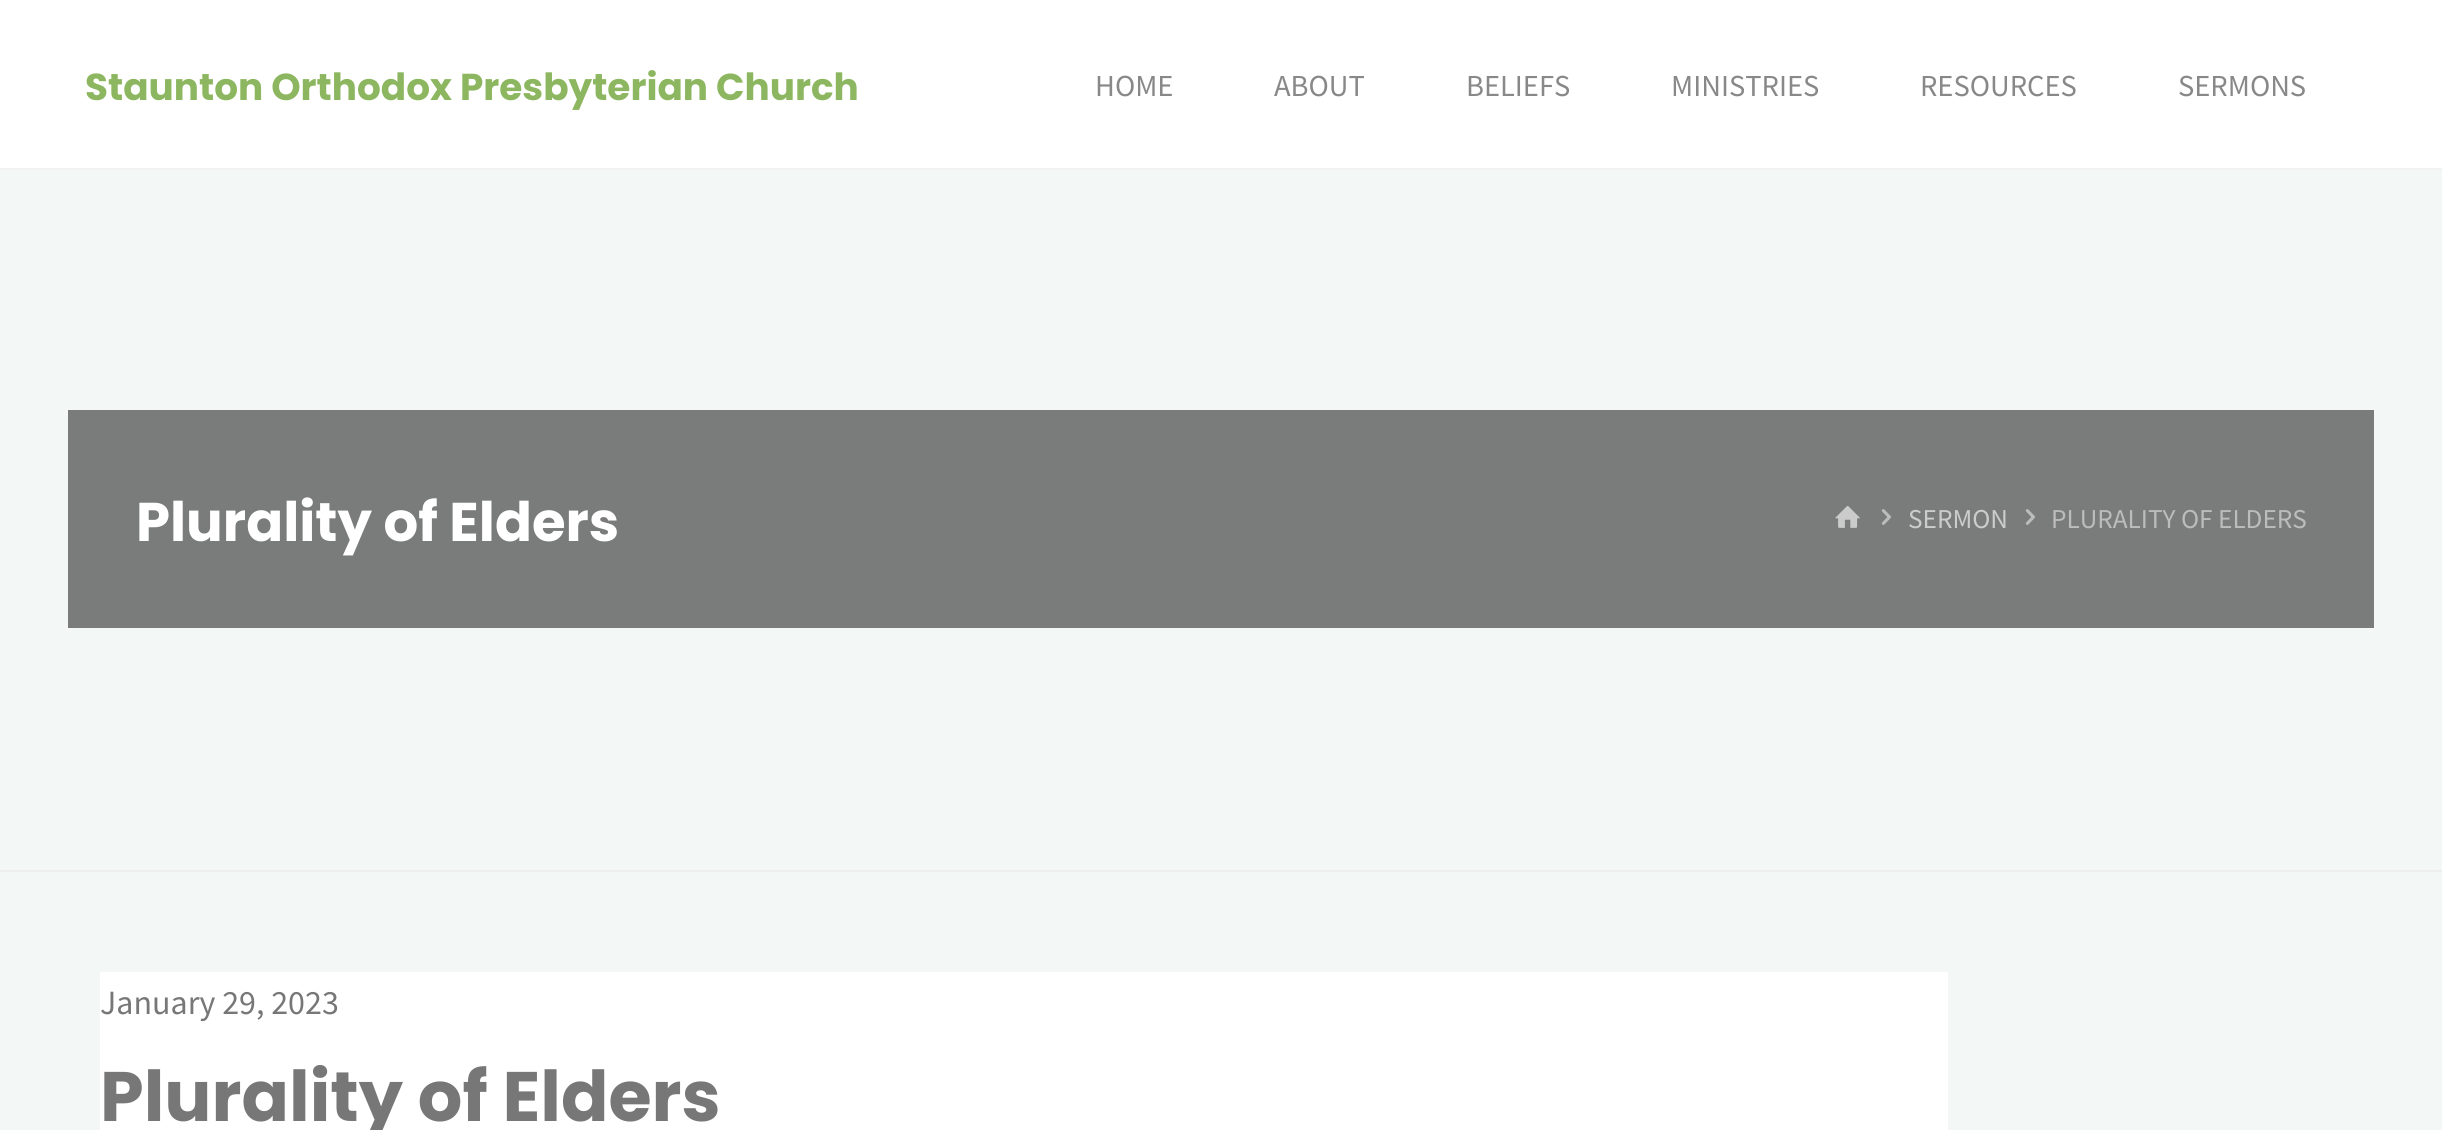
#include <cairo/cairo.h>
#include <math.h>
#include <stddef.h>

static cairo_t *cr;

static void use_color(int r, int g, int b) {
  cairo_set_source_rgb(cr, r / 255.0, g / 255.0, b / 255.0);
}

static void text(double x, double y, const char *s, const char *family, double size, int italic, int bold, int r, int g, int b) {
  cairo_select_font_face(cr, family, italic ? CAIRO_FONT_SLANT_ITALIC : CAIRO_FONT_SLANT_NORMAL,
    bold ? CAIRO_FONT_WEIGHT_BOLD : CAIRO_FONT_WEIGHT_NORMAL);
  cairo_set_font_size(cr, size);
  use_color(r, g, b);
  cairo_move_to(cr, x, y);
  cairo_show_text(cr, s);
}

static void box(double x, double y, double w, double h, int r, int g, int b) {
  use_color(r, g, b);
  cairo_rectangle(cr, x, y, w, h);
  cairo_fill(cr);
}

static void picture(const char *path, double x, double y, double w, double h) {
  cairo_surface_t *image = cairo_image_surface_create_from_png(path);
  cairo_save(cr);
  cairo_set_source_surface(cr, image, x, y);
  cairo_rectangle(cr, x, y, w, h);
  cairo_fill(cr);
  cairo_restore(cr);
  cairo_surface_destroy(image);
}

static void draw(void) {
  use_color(243, 247, 245);
  cairo_paint(cr);
  box(0, 870, 2442, 2, 238, 238, 238);
  box(0, 0, 2442, 168, 255, 255, 255);
  box(0, 168, 2442, 2, 242, 242, 242);
  box(68, 410, 2306, 218, 121, 124, 123);
  picture("img_01.png", 1835, 506, 25, 22);
  picture("img_02.png", 1881, 509, 10, 16);
  picture("img_02.png", 2025, 509, 10, 16);
  box(100, 972, 1848, 158, 255, 255, 255);
  text(85, 100, "Staunton Orthodox Presbyterian Church", "Poppins", 37.4, 0, 1, 140, 182, 95);
  text(1095, 96, "HOME", "Source Sans Pro", 30.5, 0, 0, 136, 136, 136);
  text(1274, 96, "ABOUT", "Source Sans Pro", 30.5, 0, 0, 136, 136, 136);
  text(1466, 96, "BELIEFS", "Source Sans Pro", 30.5, 0, 0, 136, 136, 136);
  text(1671, 96, "MINISTRIES", "Source Sans Pro", 30.5, 0, 0, 136, 136, 136);
  text(1920, 96, "RESOURCES", "Source Sans Pro", 30.5, 0, 0, 136, 136, 136);
  text(2178, 96, "SERMONS", "Source Sans Pro", 30.5, 0, 0, 136, 136, 136);
  text(136, 541, "Plurality of Elders", "Poppins", 54.5, 0, 1, 255, 255, 255);
  text(1908, 528, "SERMON", "Source Sans Pro", 27.25, 0, 0, 203, 204, 204);
  text(2051, 528, "PLURALITY OF ELDERS", "Source Sans Pro", 27.25, 0, 0, 188, 188, 188);
  text(100, 1014, "January 29, 2023", "Source Sans Pro", 34, 0, 0, 119, 119, 119);
  text(100, 1121, "Plurality of Elders", "Poppins", 70, 0, 1, 119, 119, 119);
}

int main(void) {
  cairo_surface_t *surface = cairo_image_surface_create(CAIRO_FORMAT_RGB24, 2442, 1130);
  cr = cairo_create(surface);
  cairo_font_options_t *options = cairo_font_options_create();
  cairo_font_options_set_hint_metrics(options, CAIRO_HINT_METRICS_OFF);
  cairo_font_options_set_hint_style(options, CAIRO_HINT_STYLE_NONE);
  cairo_set_font_options(cr, options);
  cairo_set_miter_limit(cr, 4);
  draw();
  cairo_surface_write_to_png(surface, "out.png");
  cairo_font_options_destroy(options);
  cairo_destroy(cr);
  cairo_surface_destroy(surface);
  return 0;
}
